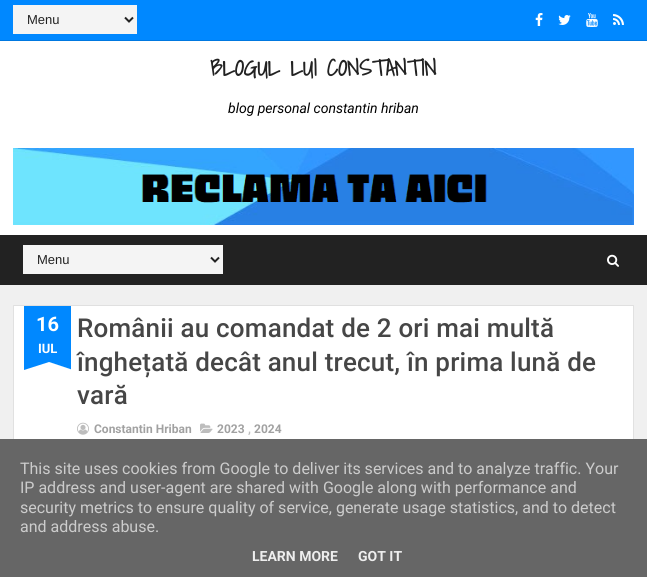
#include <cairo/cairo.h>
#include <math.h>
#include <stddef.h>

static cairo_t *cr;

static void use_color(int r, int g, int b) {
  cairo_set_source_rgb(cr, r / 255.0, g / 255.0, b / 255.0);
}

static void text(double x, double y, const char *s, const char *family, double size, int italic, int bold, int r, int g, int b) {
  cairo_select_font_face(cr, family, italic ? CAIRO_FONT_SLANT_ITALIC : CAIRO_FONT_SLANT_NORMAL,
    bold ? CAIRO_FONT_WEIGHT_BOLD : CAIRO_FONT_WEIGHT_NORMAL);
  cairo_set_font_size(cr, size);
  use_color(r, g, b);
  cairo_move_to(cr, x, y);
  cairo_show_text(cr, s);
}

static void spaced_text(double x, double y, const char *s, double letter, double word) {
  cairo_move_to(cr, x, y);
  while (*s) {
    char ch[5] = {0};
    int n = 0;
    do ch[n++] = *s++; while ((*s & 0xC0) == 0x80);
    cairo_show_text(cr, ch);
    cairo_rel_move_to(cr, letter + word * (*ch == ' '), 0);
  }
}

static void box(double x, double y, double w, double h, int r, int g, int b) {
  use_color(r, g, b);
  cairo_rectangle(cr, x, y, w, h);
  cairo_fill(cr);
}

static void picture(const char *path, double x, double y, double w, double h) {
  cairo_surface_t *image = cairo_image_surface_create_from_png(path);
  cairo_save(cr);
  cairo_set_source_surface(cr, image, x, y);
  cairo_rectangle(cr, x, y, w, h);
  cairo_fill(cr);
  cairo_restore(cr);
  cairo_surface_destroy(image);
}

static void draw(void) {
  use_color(240, 240, 240);
  cairo_paint(cr);
  box(0, 0, 647, 40, 0, 136, 255);
  box(0, 40, 647, 1, 0, 120, 224);
  box(13, 5, 124, 29, 244, 244, 244);
  cairo_new_path(cr);
  cairo_move_to(cr, 125, 17.5);
  cairo_line_to(cr, 129, 21.5);
  cairo_line_to(cr, 133, 17.5);
  use_color(34, 34, 34);
  cairo_stroke(cr);
  picture("img_01.png", 535, 13, 8, 13);
  picture("img_02.png", 558, 15, 13, 10);
  picture("img_03.png", 586, 13, 12, 14);
  picture("img_04.png", 613, 14, 11, 11);
  box(0, 41, 647, 194, 255, 255, 255);
  picture("img_05.png", 13, 148, 621, 77);
  box(0, 235, 647, 50, 34, 34, 34);
  box(23, 245, 200, 29, 244, 244, 244);
  cairo_new_path(cr);
  cairo_move_to(cr, 211, 257.5);
  cairo_line_to(cr, 215, 261.5);
  cairo_line_to(cr, 219, 257.5);
  use_color(34, 34, 34);
  cairo_stroke(cr);
  picture("img_06.png", 607, 254, 12, 13);
  box(13, 305, 621, 134, 255, 255, 255);
  use_color(224, 224, 224);
  cairo_new_path(cr);
  cairo_move_to(cr, 13, 305);
  cairo_line_to(cr, 634, 305);
  cairo_line_to(cr, 633, 306);
  cairo_line_to(cr, 14, 306);
  cairo_close_path(cr);
  cairo_fill(cr);
  cairo_set_source_rgba(cr, 0, 0, 0, 0.12);
  cairo_new_path(cr);
  cairo_move_to(cr, 634, 305);
  cairo_line_to(cr, 634, 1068);
  cairo_line_to(cr, 633, 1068);
  cairo_line_to(cr, 633, 306);
  cairo_close_path(cr);
  cairo_fill(cr);
  cairo_new_path(cr);
  cairo_move_to(cr, 13, 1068);
  cairo_line_to(cr, 13, 305);
  cairo_line_to(cr, 14, 306);
  cairo_line_to(cr, 14, 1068);
  cairo_close_path(cr);
  cairo_fill(cr);
  box(24, 306, 47, 64, 0, 136, 255);
  use_color(255, 255, 255);
  cairo_new_path(cr);
  cairo_move_to(cr, 73, 370);
  cairo_line_to(cr, 24, 370);
  cairo_line_to(cr, 49, 362);
  cairo_close_path(cr);
  cairo_fill(cr);
  picture("img_07.png", 77, 422, 12, 13);
  picture("img_08.png", 200, 423, 13, 10);
  box(0, 439, 647, 138, 102, 102, 102);
  text(27, 24, "Menu", "Liberation Sans", 13, 0, 0, 34, 34, 34);
  text(210, 76, "BLOGUL LUI CONSTANTIN", "Shadows Into Light", 23, 0, 1, 34, 34, 34);
  text(228, 113, "blog personal constantin hriban", "Roboto", 14, 1, 0, 0, 0, 0);
  text(37, 264, "Menu", "Liberation Sans", 13, 0, 0, 34, 34, 34);
  text(36, 331, "16", "Roboto", 20, 0, 1, 255, 255, 255);
  text(38, 353, "IUL", "Roboto", 13, 0, 1, 255, 255, 255);
  cairo_select_font_face(cr, "Roboto Medium", CAIRO_FONT_SLANT_NORMAL, CAIRO_FONT_WEIGHT_NORMAL);
  cairo_set_font_size(cr, 26);
  use_color(70, 70, 70);
  spaced_text(77, 337, "Românii au comandat de 2 ori mai multă", 0.2, 0);
  spaced_text(77, 371, "înghețată decât anul trecut, în prima lună de", 0.2, 0);
  spaced_text(77, 404, "vară", 0.2, 0);
  text(94, 433, "Constantin Hriban", "Roboto", 12, 0, 1, 161, 161, 161);
  text(217, 433, "2023", "Roboto", 12, 0, 1, 161, 161, 161);
  text(248, 433, ",", "Roboto", 12, 0, 1, 189, 189, 189);
  text(254, 433, "2024", "Roboto", 12, 0, 1, 161, 161, 161);
  text(20, 474, "This site uses cookies from Google to deliver its services and to analyze traffic. Your", "Roboto", 16, 0, 0, 204, 204, 204);
  text(20, 493, "IP address and user-agent are shared with Google along with performance and", "Roboto", 16, 0, 0, 204, 204, 204);
  text(20, 513, "security metrics to ensure quality of service, generate usage statistics, and to detect", "Roboto", 16, 0, 0, 204, 204, 204);
  text(20, 532, "and address abuse.", "Roboto", 16, 0, 0, 204, 204, 204);
  text(252, 561, "LEARN MORE", "Roboto", 14, 0, 1, 238, 238, 238);
  text(358, 561, "GOT IT", "Roboto", 14, 0, 1, 238, 238, 238);
}

int main(void) {
  cairo_surface_t *surface = cairo_image_surface_create(CAIRO_FORMAT_RGB24, 647, 577);
  cr = cairo_create(surface);
  cairo_font_options_t *options = cairo_font_options_create();
  cairo_font_options_set_hint_metrics(options, CAIRO_HINT_METRICS_OFF);
  cairo_font_options_set_hint_style(options, CAIRO_HINT_STYLE_NONE);
  cairo_set_font_options(cr, options);
  cairo_set_miter_limit(cr, 4);
  draw();
  cairo_surface_write_to_png(surface, "out.png");
  cairo_font_options_destroy(options);
  cairo_destroy(cr);
  cairo_surface_destroy(surface);
  return 0;
}
